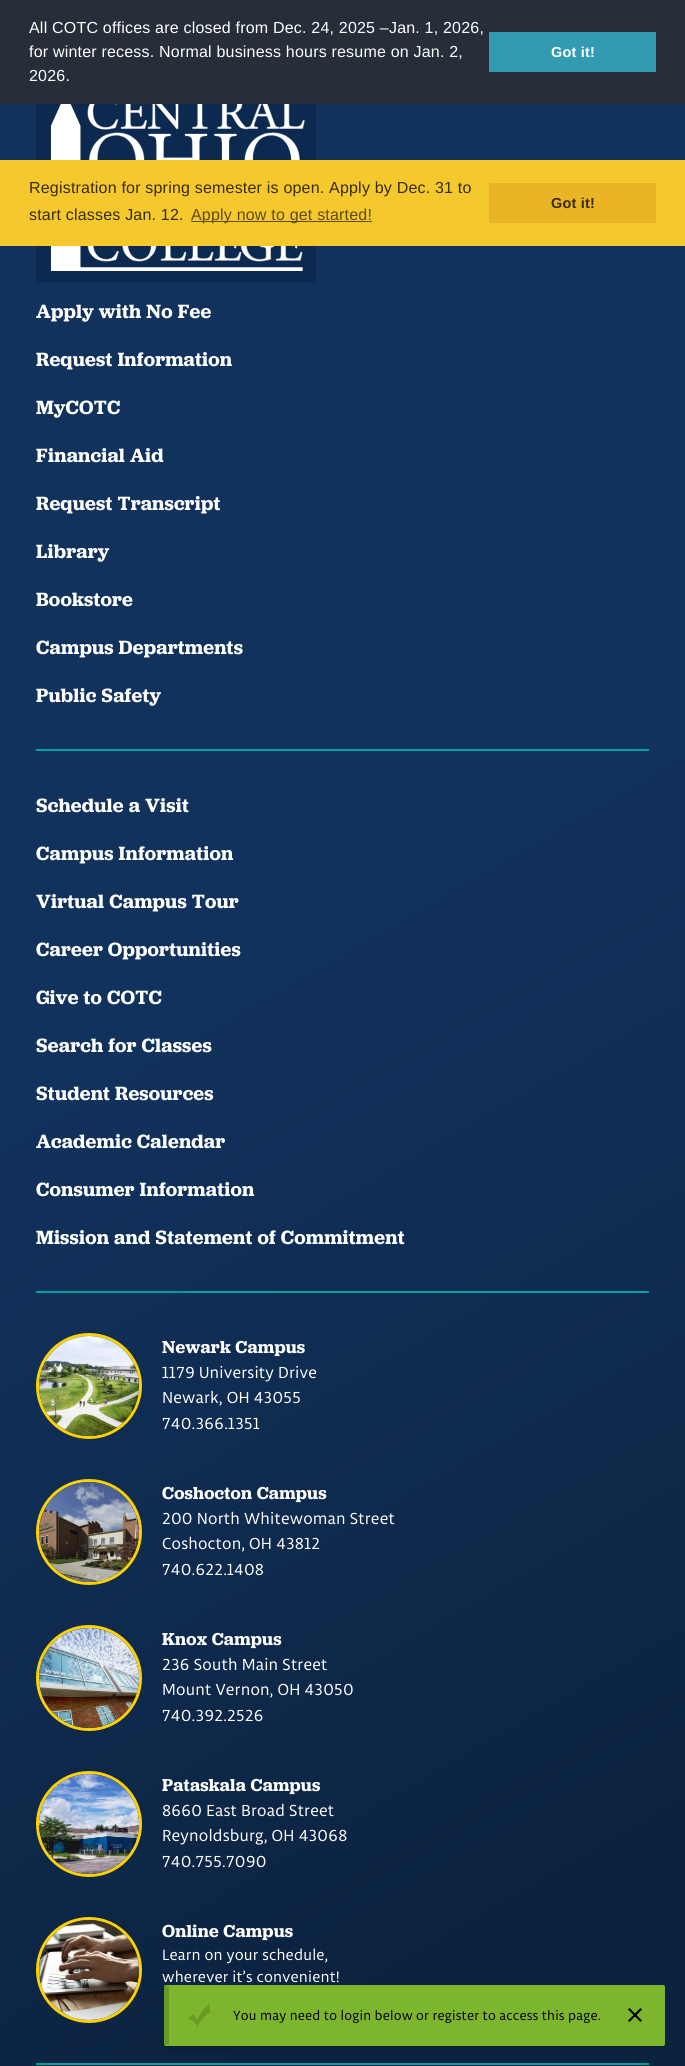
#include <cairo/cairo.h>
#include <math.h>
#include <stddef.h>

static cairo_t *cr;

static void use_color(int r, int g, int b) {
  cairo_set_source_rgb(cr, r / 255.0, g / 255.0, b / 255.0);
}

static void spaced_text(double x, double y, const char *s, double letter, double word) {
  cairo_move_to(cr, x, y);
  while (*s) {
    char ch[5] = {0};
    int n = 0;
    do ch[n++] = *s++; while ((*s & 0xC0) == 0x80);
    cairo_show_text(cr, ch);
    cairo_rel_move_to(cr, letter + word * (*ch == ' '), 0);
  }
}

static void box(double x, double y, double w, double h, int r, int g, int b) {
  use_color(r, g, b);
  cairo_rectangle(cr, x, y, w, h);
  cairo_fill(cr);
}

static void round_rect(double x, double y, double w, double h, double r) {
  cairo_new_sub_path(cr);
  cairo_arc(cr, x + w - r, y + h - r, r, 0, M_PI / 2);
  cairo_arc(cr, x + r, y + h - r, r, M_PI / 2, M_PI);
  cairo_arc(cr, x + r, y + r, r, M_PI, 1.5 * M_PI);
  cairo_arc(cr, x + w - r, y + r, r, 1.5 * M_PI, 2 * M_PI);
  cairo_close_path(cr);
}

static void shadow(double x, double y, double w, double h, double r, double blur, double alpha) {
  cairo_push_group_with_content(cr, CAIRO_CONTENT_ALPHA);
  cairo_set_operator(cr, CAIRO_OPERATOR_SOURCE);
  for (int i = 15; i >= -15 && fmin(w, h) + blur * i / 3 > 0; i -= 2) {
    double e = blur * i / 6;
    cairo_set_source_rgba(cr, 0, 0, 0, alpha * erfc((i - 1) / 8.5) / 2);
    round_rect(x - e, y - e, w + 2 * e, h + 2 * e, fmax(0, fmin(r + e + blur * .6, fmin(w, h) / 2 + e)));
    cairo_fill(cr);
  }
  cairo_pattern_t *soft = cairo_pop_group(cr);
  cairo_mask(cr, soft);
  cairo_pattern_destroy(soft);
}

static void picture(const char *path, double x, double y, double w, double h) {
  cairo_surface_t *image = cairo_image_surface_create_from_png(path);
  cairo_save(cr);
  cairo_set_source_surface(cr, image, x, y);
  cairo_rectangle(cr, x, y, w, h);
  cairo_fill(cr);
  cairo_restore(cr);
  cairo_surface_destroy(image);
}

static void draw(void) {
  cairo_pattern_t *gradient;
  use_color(255, 255, 255);
  cairo_paint(cr);
  box(0, 0, 685, 104, 38, 46, 58);
  box(489, 32, 167, 40, 50, 155, 178);
  gradient = cairo_pattern_create_linear(-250, 163, 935, 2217);
  cairo_pattern_add_color_stop_rgba(gradient, 0, 0.067, 0.196, 0.365, 1);
  cairo_pattern_add_color_stop_rgba(gradient, 0.4, 0.067, 0.196, 0.365, 1);
  cairo_pattern_add_color_stop_rgba(gradient, 0.8, 0.047, 0.137, 0.251, 1);
  cairo_pattern_add_color_stop_rgba(gradient, 1, 0.047, 0.137, 0.251, 1);
  cairo_set_source(cr, gradient);
  cairo_pattern_destroy(gradient);
  cairo_rectangle(cr, 0, 104, 685, 1962);
  cairo_fill(cr);
  picture("img_01.png", 36, 104, 280, 178);
  box(0, 160, 685, 86, 245, 201, 46);
  box(191, 221, 181, 1, 94, 75, 16);
  box(489, 183, 167, 40, 233, 180, 37);
  box(36, 749, 613, 2, 0, 160, 163);
  box(36, 1291, 613, 2, 0, 160, 163);
  box(36, 2063, 613, 2, 0, 160, 163);
  cairo_arc(cr, 89, 1386, 51.5, 0, 2 * M_PI);
  use_color(252, 209, 0);
  cairo_set_line_width(cr, 3);
  cairo_stroke(cr);
  picture("img_02.png", 39, 1336, 100, 100);
  cairo_arc(cr, 89, 1532, 51.5, 0, 2 * M_PI);
  cairo_stroke(cr);
  picture("img_03.png", 39, 1482, 100, 100);
  cairo_arc(cr, 89, 1678, 51.5, 0, 2 * M_PI);
  cairo_stroke(cr);
  picture("img_04.png", 39, 1628, 100, 100);
  cairo_arc(cr, 89, 1824, 51.5, 0, 2 * M_PI);
  cairo_stroke(cr);
  picture("img_05.png", 39, 1774, 100, 100);
  cairo_arc(cr, 89, 1970, 51.5, 0, 2 * M_PI);
  cairo_stroke(cr);
  picture("img_06.png", 39, 1920, 100, 100);
  use_color(0, 0, 0);
  shadow(164, 1988, 501, 61, 2, 3, 0.15);
  use_color(125, 181, 45);
  round_rect(164, 1985, 501, 61, 2);
  cairo_fill(cr);
  picture("img_07.png", 188, 2004, 22, 22);
  cairo_set_source_rgba(cr, 0, 0, 0, 0.15);
  cairo_rectangle(cr, 164, 1986, 5, 59);
  cairo_fill(cr);
  use_color(0, 0, 0);
  cairo_new_path(cr);
  cairo_move_to(cr, 640.5, 2008);
  cairo_line_to(cr, 642, 2009.5);
  cairo_line_to(cr, 629.5, 2022);
  cairo_line_to(cr, 628, 2020.5);
  cairo_close_path(cr);
  cairo_fill(cr);
  cairo_new_path(cr);
  cairo_move_to(cr, 628, 2009.5);
  cairo_line_to(cr, 629.5, 2008);
  cairo_line_to(cr, 642, 2020.5);
  cairo_line_to(cr, 640.5, 2022);
  cairo_close_path(cr);
  cairo_fill(cr);
  cairo_select_font_face(cr, "Liberation Sans", CAIRO_FONT_SLANT_NORMAL, CAIRO_FONT_WEIGHT_NORMAL);
  cairo_set_font_size(cr, 16);
  use_color(255, 255, 255);
  spaced_text(29, 33, "All COTC offices are closed from Dec. 24, 2025 –Jan. 1, 2026,", 0.2, 0);
  spaced_text(29, 57, "for winter recess. Normal business hours resume on Jan. 2,", 0.2, 0);
  spaced_text(29, 81, "2026.", 0.2, 0);
  cairo_select_font_face(cr, "Liberation Sans", CAIRO_FONT_SLANT_NORMAL, CAIRO_FONT_WEIGHT_BOLD);
  cairo_set_font_size(cr, 14.5);
  spaced_text(551, 57, "Got it!", 0.2, 0);
  cairo_select_font_face(cr, "Liberation Sans", CAIRO_FONT_SLANT_NORMAL, CAIRO_FONT_WEIGHT_NORMAL);
  cairo_set_font_size(cr, 16);
  use_color(56, 43, 8);
  spaced_text(29, 193, "Registration for spring semester is open. Apply by Dec. 31 to", 0.2, 0);
  spaced_text(29, 220, "start classes Jan. 12.", 0.2, 0);
  use_color(94, 75, 16);
  spaced_text(191, 220, "Apply now to get started!", 0.2, 0);
  cairo_select_font_face(cr, "Liberation Sans", CAIRO_FONT_SLANT_NORMAL, CAIRO_FONT_WEIGHT_BOLD);
  cairo_set_font_size(cr, 14.5);
  use_color(56, 43, 8);
  spaced_text(551, 208, "Got it!", 0.2, 0);
  cairo_select_font_face(cr, "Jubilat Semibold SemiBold", CAIRO_FONT_SLANT_NORMAL, CAIRO_FONT_WEIGHT_NORMAL);
  cairo_set_font_size(cr, 20);
  use_color(255, 255, 255);
  spaced_text(36, 318, "Apply with No Fee", 0.2, 0);
  spaced_text(36, 366, "Request Information", 0.2, 0);
  spaced_text(36, 414, "MyCOTC", 0.2, 0);
  spaced_text(36, 462, "Financial Aid", 0.2, 0);
  spaced_text(36, 510, "Request Transcript", 0.2, 0);
  spaced_text(36, 558, "Library", 0.2, 0);
  spaced_text(36, 606, "Bookstore", 0.2, 0);
  spaced_text(36, 654, "Campus Departments", 0.2, 0);
  spaced_text(36, 702, "Public Safety", 0.2, 0);
  spaced_text(36, 812, "Schedule a Visit", 0.2, 0);
  spaced_text(36, 860, "Campus Information", 0.2, 0);
  spaced_text(36, 908, "Virtual Campus Tour", 0.2, 0);
  spaced_text(36, 956, "Career Opportunities", 0.2, 0);
  spaced_text(36, 1004, "Give to COTC", 0.2, 0);
  spaced_text(36, 1052, "Search for Classes", 0.2, 0);
  spaced_text(36, 1100, "Student Resources", 0.2, 0);
  spaced_text(36, 1148, "Academic Calendar", 0.2, 0);
  spaced_text(36, 1196, "Consumer Information", 0.2, 0);
  spaced_text(36, 1244, "Mission and Statement of Commitment", 0.2, 0);
  cairo_set_font_size(cr, 18);
  spaced_text(162, 1353, "Newark Campus", 0.2, 0);
  cairo_select_font_face(cr, "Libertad", CAIRO_FONT_SLANT_NORMAL, CAIRO_FONT_WEIGHT_NORMAL);
  cairo_set_font_size(cr, 17);
  spaced_text(162, 1378, "1179 University Drive", 0.2, 0);
  spaced_text(162, 1403, "Newark, OH 43055", 0.2, 0);
  spaced_text(162, 1429, "740.366.1351", 0.2, 0);
  cairo_select_font_face(cr, "Jubilat Semibold SemiBold", CAIRO_FONT_SLANT_NORMAL, CAIRO_FONT_WEIGHT_NORMAL);
  cairo_set_font_size(cr, 18);
  spaced_text(162, 1499, "Coshocton Campus", 0.2, 0);
  cairo_select_font_face(cr, "Libertad", CAIRO_FONT_SLANT_NORMAL, CAIRO_FONT_WEIGHT_NORMAL);
  cairo_set_font_size(cr, 17);
  spaced_text(162, 1524, "200 North Whitewoman Street", 0.2, 0);
  spaced_text(162, 1549, "Coshocton, OH 43812", 0.2, 0);
  spaced_text(162, 1575, "740.622.1408", 0.2, 0);
  cairo_select_font_face(cr, "Jubilat Semibold SemiBold", CAIRO_FONT_SLANT_NORMAL, CAIRO_FONT_WEIGHT_NORMAL);
  cairo_set_font_size(cr, 18);
  spaced_text(162, 1645, "Knox Campus", 0.2, 0);
  cairo_select_font_face(cr, "Libertad", CAIRO_FONT_SLANT_NORMAL, CAIRO_FONT_WEIGHT_NORMAL);
  cairo_set_font_size(cr, 17);
  spaced_text(162, 1670, "236 South Main Street", 0.2, 0);
  spaced_text(162, 1695, "Mount Vernon, OH 43050", 0.2, 0);
  spaced_text(162, 1721, "740.392.2526", 0.2, 0);
  cairo_select_font_face(cr, "Jubilat Semibold SemiBold", CAIRO_FONT_SLANT_NORMAL, CAIRO_FONT_WEIGHT_NORMAL);
  cairo_set_font_size(cr, 18);
  spaced_text(162, 1791, "Pataskala Campus", 0.2, 0);
  cairo_select_font_face(cr, "Libertad", CAIRO_FONT_SLANT_NORMAL, CAIRO_FONT_WEIGHT_NORMAL);
  cairo_set_font_size(cr, 17);
  spaced_text(162, 1816, "8660 East Broad Street", 0.2, 0);
  spaced_text(162, 1841, "Reynoldsburg, OH 43068", 0.2, 0);
  spaced_text(162, 1867, "740.755.7090", 0.2, 0);
  cairo_select_font_face(cr, "Jubilat Semibold SemiBold", CAIRO_FONT_SLANT_NORMAL, CAIRO_FONT_WEIGHT_NORMAL);
  cairo_set_font_size(cr, 18);
  spaced_text(162, 1937, "Online Campus", 0.2, 0);
  cairo_select_font_face(cr, "Libertad", CAIRO_FONT_SLANT_NORMAL, CAIRO_FONT_WEIGHT_NORMAL);
  cairo_set_font_size(cr, 16);
  spaced_text(162, 1960, "Learn on your schedule,", 0.2, 0);
  spaced_text(162, 1982, "wherever it’s convenient!", 0.2, 0);
  cairo_set_font_size(cr, 14);
  use_color(0, 0, 0);
  spaced_text(233, 2020, "You may need to login below or register to access this page.", 0.2, 0);
}

int main(void) {
  cairo_surface_t *surface = cairo_image_surface_create(CAIRO_FORMAT_RGB24, 685, 2066);
  cr = cairo_create(surface);
  cairo_font_options_t *options = cairo_font_options_create();
  cairo_font_options_set_hint_metrics(options, CAIRO_HINT_METRICS_OFF);
  cairo_font_options_set_hint_style(options, CAIRO_HINT_STYLE_NONE);
  cairo_set_font_options(cr, options);
  cairo_set_miter_limit(cr, 4);
  draw();
  cairo_surface_write_to_png(surface, "out.png");
  cairo_font_options_destroy(options);
  cairo_destroy(cr);
  cairo_surface_destroy(surface);
  return 0;
}
